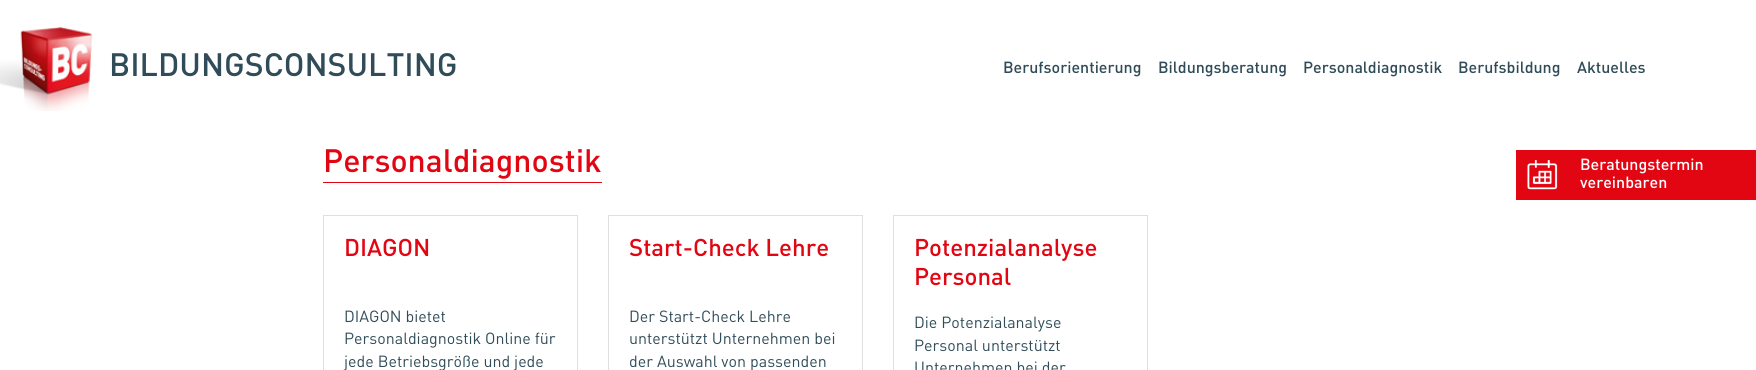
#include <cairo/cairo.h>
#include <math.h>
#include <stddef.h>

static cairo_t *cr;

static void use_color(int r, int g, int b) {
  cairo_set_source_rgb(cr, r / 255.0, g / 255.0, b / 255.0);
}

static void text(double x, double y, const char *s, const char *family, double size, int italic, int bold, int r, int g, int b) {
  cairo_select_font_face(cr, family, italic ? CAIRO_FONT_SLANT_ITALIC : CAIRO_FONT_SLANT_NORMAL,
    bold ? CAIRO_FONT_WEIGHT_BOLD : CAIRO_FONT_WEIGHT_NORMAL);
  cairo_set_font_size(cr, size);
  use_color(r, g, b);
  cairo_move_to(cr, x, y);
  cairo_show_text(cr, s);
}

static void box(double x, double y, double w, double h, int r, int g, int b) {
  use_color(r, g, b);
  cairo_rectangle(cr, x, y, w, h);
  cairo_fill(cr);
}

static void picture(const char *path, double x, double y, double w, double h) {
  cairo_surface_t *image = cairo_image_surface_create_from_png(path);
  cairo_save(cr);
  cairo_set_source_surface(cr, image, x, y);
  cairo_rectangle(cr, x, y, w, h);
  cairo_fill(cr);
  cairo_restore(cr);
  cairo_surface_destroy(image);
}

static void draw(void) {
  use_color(255, 255, 255);
  cairo_paint(cr);
  picture("img_01.png", 0, 27, 92, 84);
  box(323, 182, 279, 1, 226, 6, 19);
  cairo_rectangle(cr, 323.5, 215.5, 254, 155);
  use_color(223, 223, 223);
  cairo_set_line_width(cr, 1);
  cairo_stroke(cr);
  cairo_rectangle(cr, 608.5, 215.5, 254, 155);
  cairo_stroke(cr);
  cairo_rectangle(cr, 893.5, 215.5, 254, 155);
  cairo_stroke(cr);
  box(1516, 150, 240, 50, 226, 6, 19);
  picture("img_02.png", 1527, 159, 31, 31);
  text(109, 76, "BILDUNGSCONSULTING", "DIN Medium", 32, 0, 0, 48, 76, 89);
  text(1003, 73, "Berufsorientierung", "DIN Medium", 16, 0, 0, 48, 76, 89);
  text(1158, 73, "Bildungsberatung", "DIN Medium", 16, 0, 0, 48, 76, 89);
  text(1303, 73, "Personaldiagnostik", "DIN Medium", 16, 0, 0, 48, 76, 89);
  text(1458, 73, "Berufsbildung", "DIN Medium", 16, 0, 0, 48, 76, 89);
  text(1577, 73, "Aktuelles", "DIN Medium", 16, 0, 0, 48, 76, 89);
  text(323, 172, "Personaldiagnostik", "DIN Medium", 32, 0, 0, 226, 6, 19);
  text(344, 256, "DIAGON", "DIN Medium", 24, 0, 0, 226, 6, 19);
  text(344, 322, "DIAGON bietet", "DIN", 16, 0, 0, 48, 76, 89);
  text(344, 344, "Personaldiagnostik Online für", "DIN", 16, 0, 0, 48, 76, 89);
  text(344, 367, "jede Betriebsgröße und jede", "DIN", 16, 0, 0, 48, 76, 89);
  text(629, 256, "Start-Check Lehre", "DIN Medium", 24, 0, 0, 226, 6, 19);
  text(629, 322, "Der Start-Check Lehre", "DIN", 16, 0, 0, 48, 76, 89);
  text(629, 344, "unterstützt Unternehmen bei", "DIN", 16, 0, 0, 48, 76, 89);
  text(629, 367, "der Auswahl von passenden", "DIN", 16, 0, 0, 48, 76, 89);
  text(914, 256, "Potenzialanalyse", "DIN Medium", 24, 0, 0, 226, 6, 19);
  text(914, 285, "Personal", "DIN Medium", 24, 0, 0, 226, 6, 19);
  text(914, 328, "Die Potenzialanalyse", "DIN", 16, 0, 0, 48, 76, 89);
  text(914, 351, "Personal unterstützt", "DIN", 16, 0, 0, 48, 76, 89);
  text(914, 373, "Unternehmen bei der", "DIN", 16, 0, 0, 48, 76, 89);
  text(1580, 170, "Beratungstermin", "DIN Medium", 16, 0, 0, 255, 255, 255);
  text(1580, 188, "vereinbaren", "DIN Medium", 16, 0, 0, 255, 255, 255);
}

int main(void) {
  cairo_surface_t *surface = cairo_image_surface_create(CAIRO_FORMAT_RGB24, 1756, 370);
  cr = cairo_create(surface);
  cairo_font_options_t *options = cairo_font_options_create();
  cairo_font_options_set_hint_metrics(options, CAIRO_HINT_METRICS_OFF);
  cairo_font_options_set_hint_style(options, CAIRO_HINT_STYLE_NONE);
  cairo_set_font_options(cr, options);
  cairo_set_miter_limit(cr, 4);
  draw();
  cairo_surface_write_to_png(surface, "out.png");
  cairo_font_options_destroy(options);
  cairo_destroy(cr);
  cairo_surface_destroy(surface);
  return 0;
}
